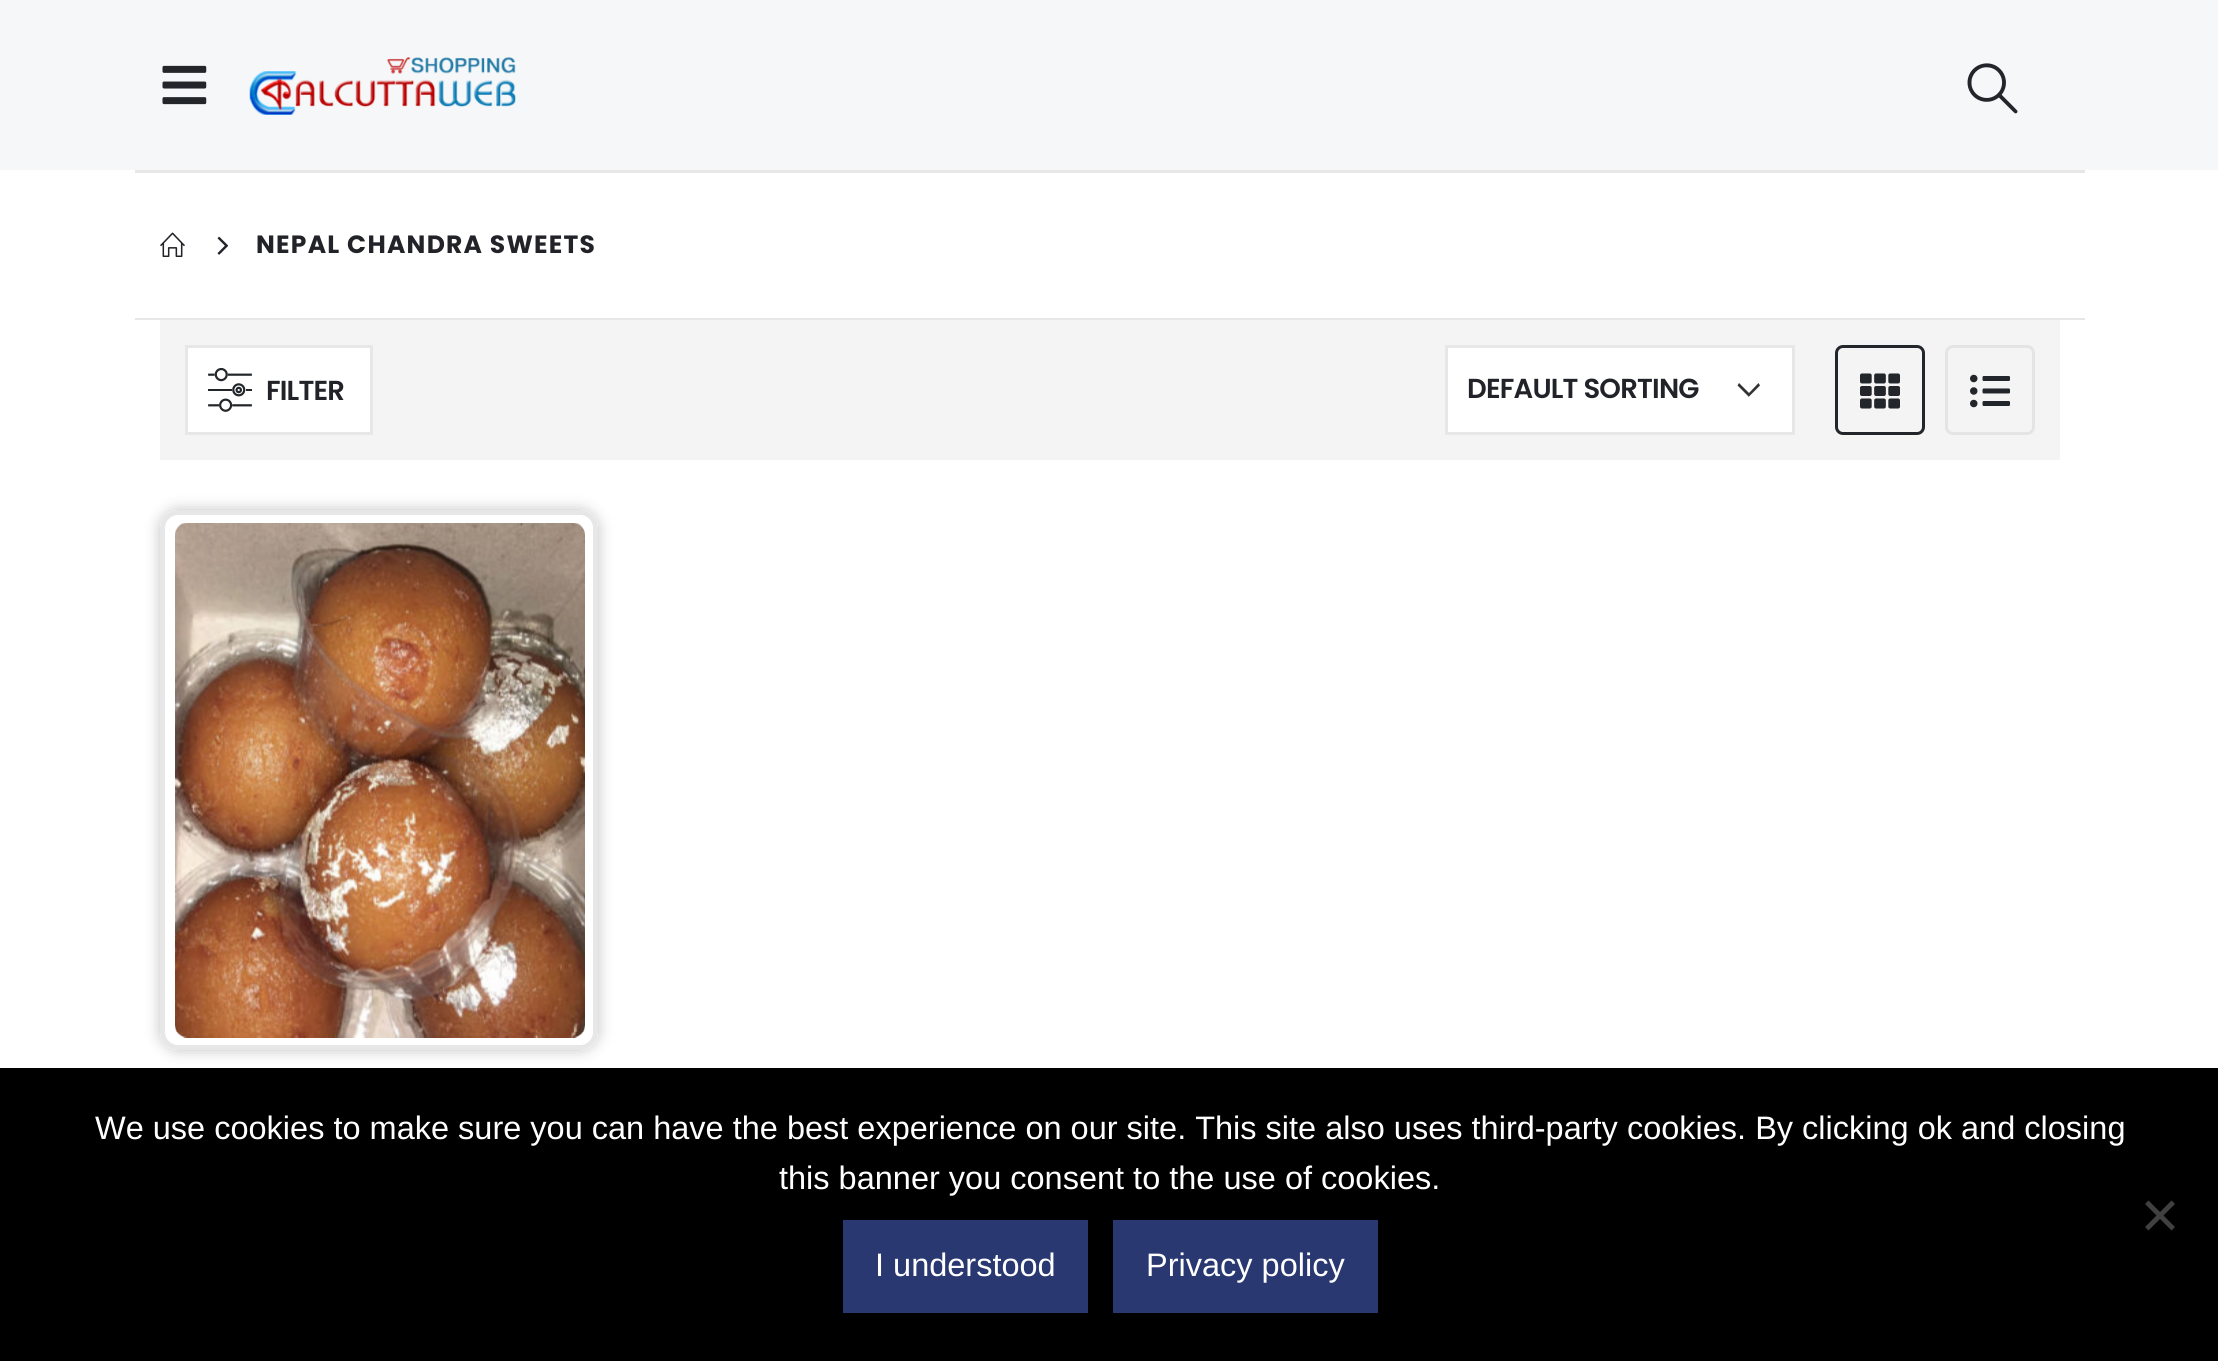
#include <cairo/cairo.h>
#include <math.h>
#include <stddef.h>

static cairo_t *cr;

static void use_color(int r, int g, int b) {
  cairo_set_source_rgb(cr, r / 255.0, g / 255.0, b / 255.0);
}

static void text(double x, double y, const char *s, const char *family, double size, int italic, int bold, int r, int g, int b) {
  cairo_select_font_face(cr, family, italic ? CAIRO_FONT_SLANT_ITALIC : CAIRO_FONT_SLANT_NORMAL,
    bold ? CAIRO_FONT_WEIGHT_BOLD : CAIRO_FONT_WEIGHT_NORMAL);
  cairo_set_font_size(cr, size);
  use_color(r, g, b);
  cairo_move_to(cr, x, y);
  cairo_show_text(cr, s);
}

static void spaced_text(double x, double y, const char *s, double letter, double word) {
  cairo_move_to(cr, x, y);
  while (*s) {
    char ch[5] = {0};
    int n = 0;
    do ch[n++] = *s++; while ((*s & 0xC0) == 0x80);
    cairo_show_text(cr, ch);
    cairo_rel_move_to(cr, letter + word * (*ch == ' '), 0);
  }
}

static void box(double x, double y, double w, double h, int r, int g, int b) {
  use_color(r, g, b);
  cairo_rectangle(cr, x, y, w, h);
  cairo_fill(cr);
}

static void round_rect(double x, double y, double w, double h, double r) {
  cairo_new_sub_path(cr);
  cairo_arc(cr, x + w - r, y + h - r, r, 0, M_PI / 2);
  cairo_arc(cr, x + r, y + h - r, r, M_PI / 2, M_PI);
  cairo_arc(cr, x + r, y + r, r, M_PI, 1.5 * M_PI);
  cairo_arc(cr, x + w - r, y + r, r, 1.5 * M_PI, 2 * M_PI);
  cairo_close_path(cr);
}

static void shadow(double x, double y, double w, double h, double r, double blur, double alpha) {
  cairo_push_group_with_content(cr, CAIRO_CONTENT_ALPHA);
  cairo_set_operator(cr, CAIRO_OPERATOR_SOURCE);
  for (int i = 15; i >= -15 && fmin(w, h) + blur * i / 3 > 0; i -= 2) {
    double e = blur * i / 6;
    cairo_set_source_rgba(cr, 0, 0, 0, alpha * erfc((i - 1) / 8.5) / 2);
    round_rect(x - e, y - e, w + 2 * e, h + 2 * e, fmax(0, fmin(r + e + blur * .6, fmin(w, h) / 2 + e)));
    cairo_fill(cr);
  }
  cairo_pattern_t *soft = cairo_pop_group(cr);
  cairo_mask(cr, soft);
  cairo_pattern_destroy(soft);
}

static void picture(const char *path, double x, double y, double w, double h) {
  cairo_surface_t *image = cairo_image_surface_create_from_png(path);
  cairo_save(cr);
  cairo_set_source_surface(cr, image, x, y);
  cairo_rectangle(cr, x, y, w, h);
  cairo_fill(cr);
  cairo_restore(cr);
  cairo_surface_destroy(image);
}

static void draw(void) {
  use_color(255, 255, 255);
  cairo_paint(cr);
  box(0, 0, 2218, 170, 246, 247, 249);
  picture("img_01.png", 162, 65, 45, 40);
  picture("img_02.png", 249, 57, 267, 58);
  picture("img_03.png", 1967, 63, 51, 51);
  box(135, 170, 1950, 3, 231, 231, 231);
  picture("img_04.png", 160, 232, 25, 25);
  picture("img_05.png", 217, 236, 12, 19);
  box(135, 318, 1950, 2, 231, 231, 231);
  box(160, 320, 1900, 140, 244, 244, 244);
  use_color(255, 255, 255);
  cairo_rectangle(cr, 186.5, 346.5, 185, 87);
  cairo_fill_preserve(cr);
  use_color(231, 231, 231);
  cairo_set_line_width(cr, 3);
  cairo_stroke(cr);
  picture("img_06.png", 208, 367, 44, 45);
  box(1448, 348, 344, 84, 255, 255, 255);
  use_color(51, 51, 51);
  cairo_set_fill_rule(cr, CAIRO_FILL_RULE_EVEN_ODD);
  cairo_new_path(cr);
  cairo_move_to(cr, 1749, 396.5);
  cairo_line_to(cr, 1760, 385.5);
  cairo_line_to(cr, 1758.5, 383);
  cairo_line_to(cr, 1749, 393);
  cairo_line_to(cr, 1739, 383);
  cairo_line_to(cr, 1737.5, 385.5);
  cairo_line_to(cr, 1749, 397);
  cairo_close_path(cr);
  cairo_fill(cr);
  cairo_rectangle(cr, 1446.5, 346.5, 347, 87);
  use_color(231, 231, 231);
  cairo_stroke(cr);
  round_rect(1836.5, 346.5, 87, 87, 6.5);
  use_color(34, 37, 41);
  cairo_stroke(cr);
  picture("img_07.png", 1860, 373, 40, 36);
  round_rect(1946.5, 346.5, 87, 87, 6.5);
  use_color(228, 228, 228);
  cairo_stroke(cr);
  picture("img_08.png", 1970, 374, 40, 34);
  cairo_save(cr);
  cairo_new_path(cr);
  cairo_move_to(cr, 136, 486);
  cairo_line_to(cr, 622, 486);
  cairo_line_to(cr, 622, 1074);
  cairo_line_to(cr, 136, 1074);
  cairo_close_path(cr);
  cairo_move_to(cr, 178, 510);
  cairo_line_to(cr, 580, 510);
  cairo_curve_to(cr, 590, 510, 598, 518, 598, 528);
  cairo_line_to(cr, 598, 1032);
  cairo_curve_to(cr, 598, 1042, 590, 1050, 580, 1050);
  cairo_line_to(cr, 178, 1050);
  cairo_curve_to(cr, 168, 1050, 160, 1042, 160, 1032);
  cairo_line_to(cr, 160, 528);
  cairo_curve_to(cr, 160, 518, 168, 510, 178, 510);
  cairo_close_path(cr);
  cairo_clip(cr);
  use_color(196, 196, 196);
  shadow(160, 510, 438, 540, 18, 7.5, 1);
  cairo_restore(cr);
  round_rect(162.5, 512.5, 433, 535, 15.5);
  use_color(231, 231, 231);
  cairo_set_line_width(cr, 5);
  cairo_stroke(cr);
  picture("img_09.png", 175, 523, 410, 515);
  box(0, 1068, 2218, 293, 0, 0, 0);
  use_color(64, 64, 64);
  cairo_set_fill_rule(cr, CAIRO_FILL_RULE_WINDING);
  cairo_new_path(cr);
  cairo_move_to(cr, 2171.5, 1200.5);
  cairo_line_to(cr, 2175, 1204);
  cairo_line_to(cr, 2148.5, 1230.5);
  cairo_line_to(cr, 2145, 1227);
  cairo_close_path(cr);
  cairo_fill(cr);
  cairo_new_path(cr);
  cairo_move_to(cr, 2145, 1204);
  cairo_line_to(cr, 2148.5, 1200.5);
  cairo_line_to(cr, 2175, 1227);
  cairo_line_to(cr, 2171.5, 1230.5);
  cairo_close_path(cr);
  cairo_fill(cr);
  box(843, 1220, 245, 93, 41, 56, 113);
  box(1113, 1220, 265, 93, 41, 56, 113);
  cairo_select_font_face(cr, "Poppins", CAIRO_FONT_SLANT_NORMAL, CAIRO_FONT_WEIGHT_BOLD);
  cairo_set_font_size(cr, 25);
  use_color(34, 35, 41);
  spaced_text(256, 253, "NEPAL CHANDRA SWEETS", 1.25, 0);
  cairo_select_font_face(cr, "Poppins SemiBold", CAIRO_FONT_SLANT_NORMAL, CAIRO_FONT_WEIGHT_NORMAL);
  cairo_set_font_size(cr, 27.5);
  spaced_text(266, 400, "FILTER", -0.8, 0);
  spaced_text(1467, 398, "DEFAULT SORTING", -0.8, 0);
  text(95, 1139, "We use cookies to make sure you can have the best experience on our site. This site also uses third-party cookies. By clicking ok and closing", "Liberation Sans", 32.5, 0, 0, 255, 255, 255);
  text(779, 1189, "this banner you consent to the use of cookies.", "Liberation Sans", 32.5, 0, 0, 255, 255, 255);
  text(875, 1276, "I understood", "Liberation Sans", 32.5, 0, 0, 255, 255, 255);
  text(1146, 1276, "Privacy policy", "Liberation Sans", 32.5, 0, 0, 255, 255, 255);
}

int main(void) {
  cairo_surface_t *surface = cairo_image_surface_create(CAIRO_FORMAT_RGB24, 2218, 1361);
  cr = cairo_create(surface);
  cairo_font_options_t *options = cairo_font_options_create();
  cairo_font_options_set_hint_metrics(options, CAIRO_HINT_METRICS_OFF);
  cairo_font_options_set_hint_style(options, CAIRO_HINT_STYLE_NONE);
  cairo_set_font_options(cr, options);
  cairo_set_miter_limit(cr, 4);
  draw();
  cairo_surface_write_to_png(surface, "out.png");
  cairo_font_options_destroy(options);
  cairo_destroy(cr);
  cairo_surface_destroy(surface);
  return 0;
}
